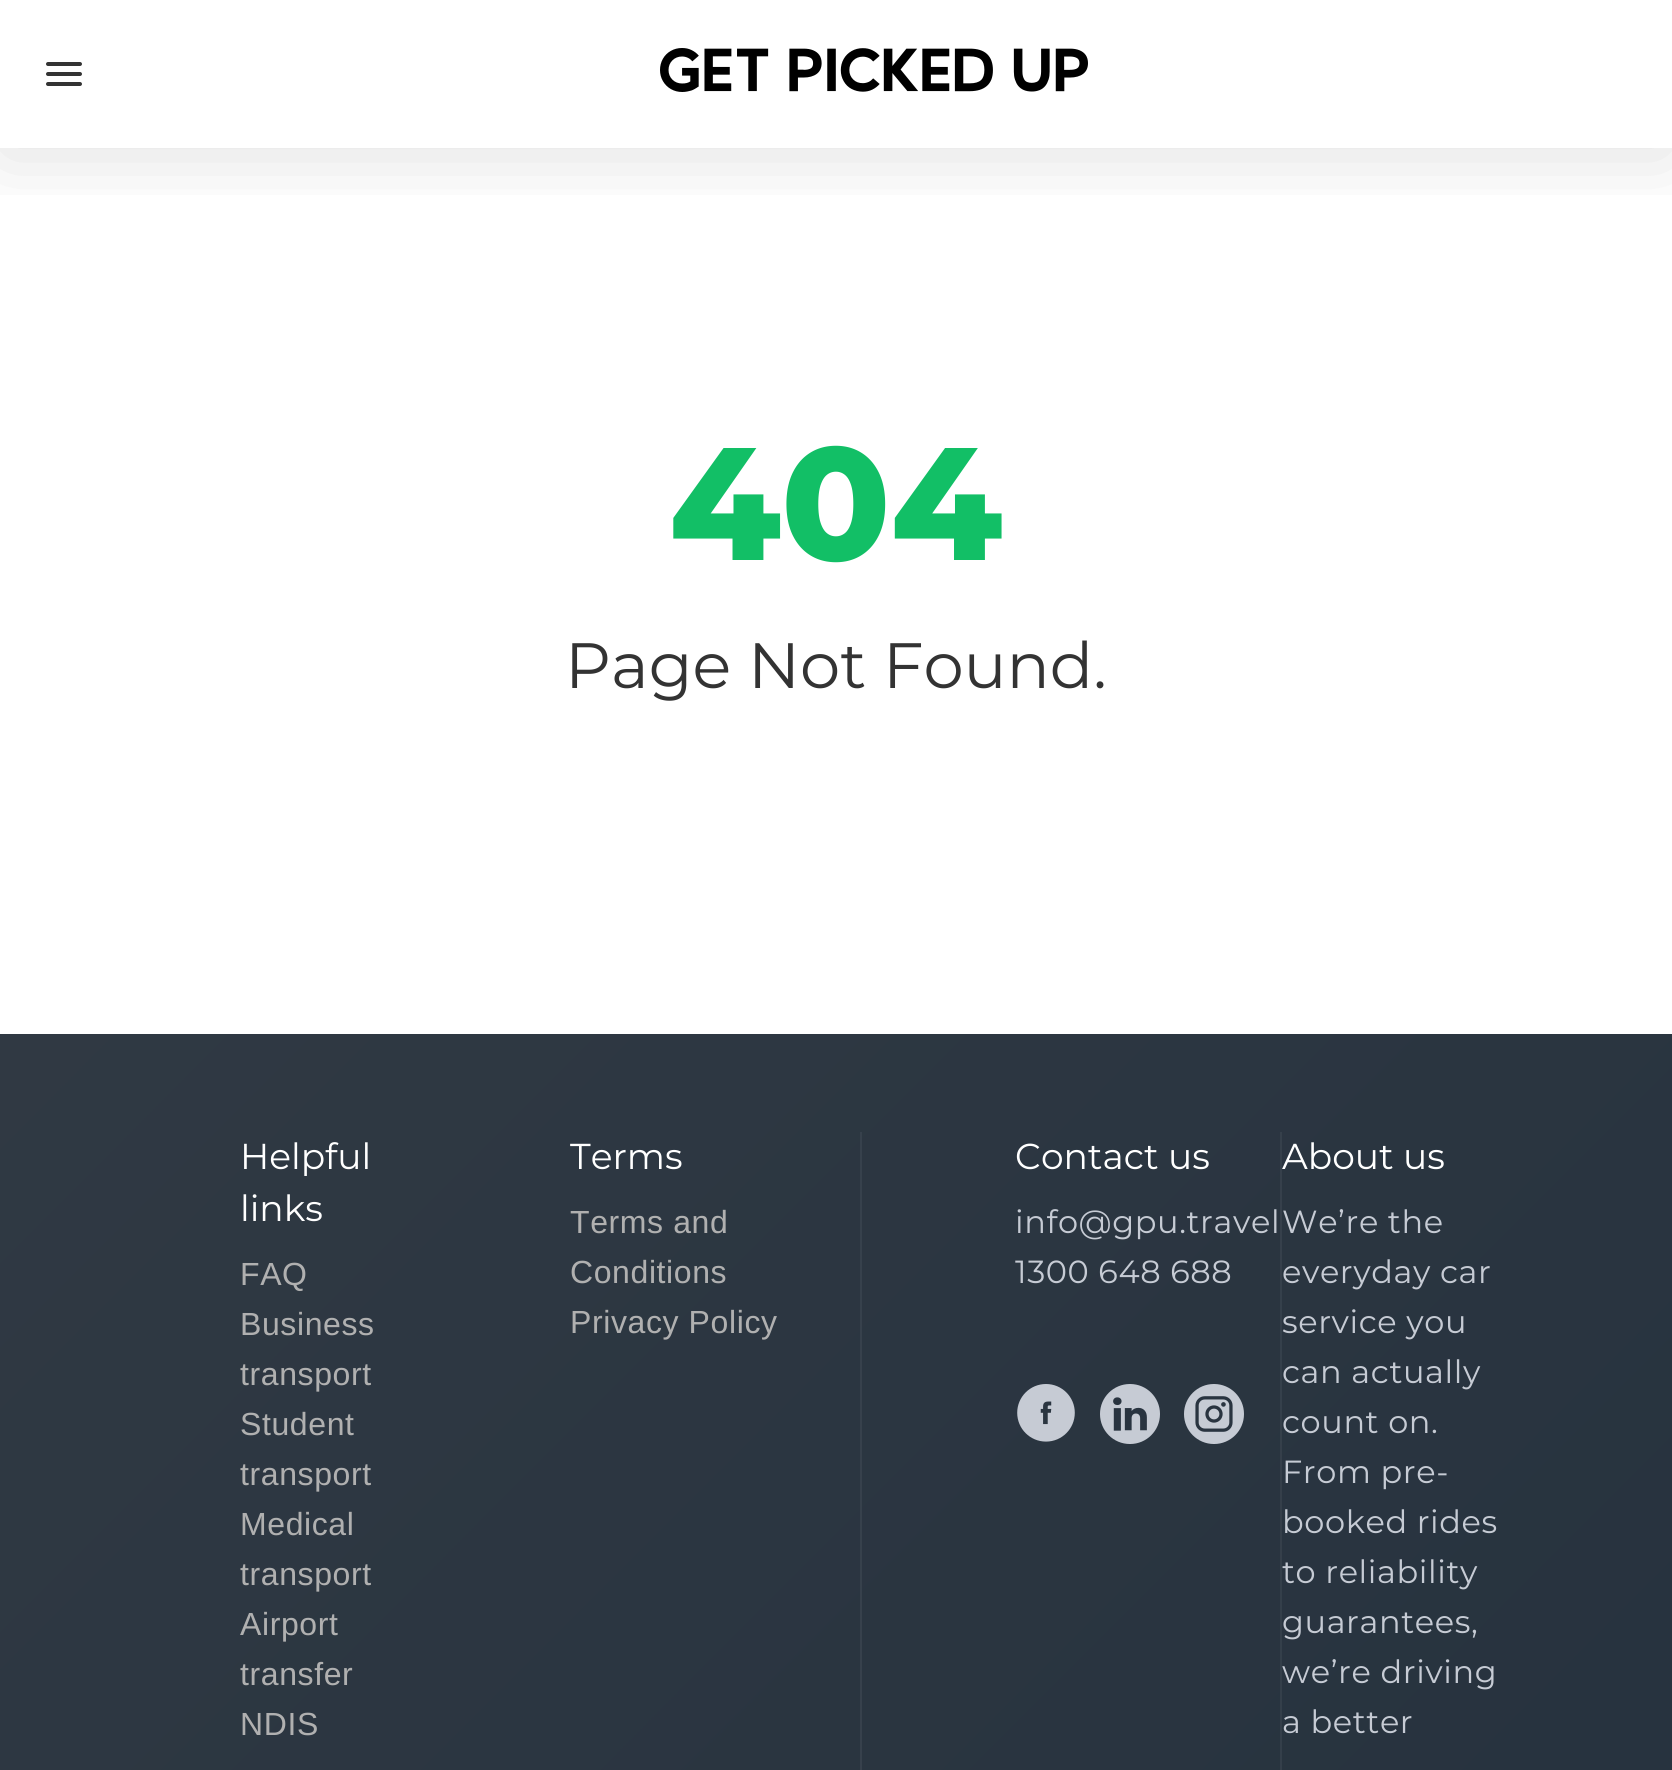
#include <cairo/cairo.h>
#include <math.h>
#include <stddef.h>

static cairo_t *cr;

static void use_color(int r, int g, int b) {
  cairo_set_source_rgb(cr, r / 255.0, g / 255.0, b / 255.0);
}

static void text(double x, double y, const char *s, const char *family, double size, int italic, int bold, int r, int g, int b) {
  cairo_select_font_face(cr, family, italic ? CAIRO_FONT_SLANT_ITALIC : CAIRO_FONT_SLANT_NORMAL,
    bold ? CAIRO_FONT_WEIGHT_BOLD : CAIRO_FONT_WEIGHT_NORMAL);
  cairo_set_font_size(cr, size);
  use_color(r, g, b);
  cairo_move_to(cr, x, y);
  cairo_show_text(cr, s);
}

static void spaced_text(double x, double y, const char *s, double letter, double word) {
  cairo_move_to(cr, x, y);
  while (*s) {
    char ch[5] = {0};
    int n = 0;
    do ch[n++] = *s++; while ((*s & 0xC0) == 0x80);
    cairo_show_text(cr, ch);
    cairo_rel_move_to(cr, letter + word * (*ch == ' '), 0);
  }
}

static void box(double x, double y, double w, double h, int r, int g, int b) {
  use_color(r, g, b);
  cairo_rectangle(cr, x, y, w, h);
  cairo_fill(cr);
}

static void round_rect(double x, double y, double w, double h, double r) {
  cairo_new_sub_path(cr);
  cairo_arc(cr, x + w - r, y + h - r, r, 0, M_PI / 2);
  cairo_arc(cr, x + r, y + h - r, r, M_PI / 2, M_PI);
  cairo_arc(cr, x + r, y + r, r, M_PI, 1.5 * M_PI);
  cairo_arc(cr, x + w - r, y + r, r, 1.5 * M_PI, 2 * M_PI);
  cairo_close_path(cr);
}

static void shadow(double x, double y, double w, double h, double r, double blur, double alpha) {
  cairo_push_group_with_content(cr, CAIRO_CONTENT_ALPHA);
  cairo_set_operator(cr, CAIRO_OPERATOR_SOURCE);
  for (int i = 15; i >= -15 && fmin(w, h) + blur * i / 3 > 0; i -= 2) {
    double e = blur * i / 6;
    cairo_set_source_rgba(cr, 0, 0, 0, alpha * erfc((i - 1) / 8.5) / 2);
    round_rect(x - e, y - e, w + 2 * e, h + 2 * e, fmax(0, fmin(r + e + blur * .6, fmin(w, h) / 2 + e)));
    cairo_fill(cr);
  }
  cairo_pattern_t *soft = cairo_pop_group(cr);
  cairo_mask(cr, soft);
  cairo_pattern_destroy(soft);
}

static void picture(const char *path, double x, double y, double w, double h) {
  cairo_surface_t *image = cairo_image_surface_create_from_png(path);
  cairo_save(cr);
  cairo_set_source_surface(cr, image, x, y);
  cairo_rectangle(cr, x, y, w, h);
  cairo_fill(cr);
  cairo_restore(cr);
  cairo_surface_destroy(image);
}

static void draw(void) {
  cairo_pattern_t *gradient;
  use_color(255, 255, 255);
  cairo_paint(cr);
  cairo_save(cr);
  cairo_rectangle(cr, 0, 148, 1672, 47);
  cairo_clip(cr);
  use_color(0, 0, 0);
  shadow(0, 8, 1672, 148, 0, 40, 0.12);
  cairo_restore(cr);
  use_color(51, 51, 51);
  round_rect(46, 62, 36, 4, 2);
  cairo_fill(cr);
  round_rect(46, 72, 36, 4, 2);
  cairo_fill(cr);
  round_rect(46, 82, 36, 4, 2);
  cairo_fill(cr);
  picture("img_01.png", 660, 48, 428, 44);
  gradient = cairo_pattern_create_linear(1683, 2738, -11, 1045);
  cairo_pattern_add_color_stop_rgba(gradient, 0, 0.137, 0.188, 0.239, 1);
  cairo_pattern_add_color_stop_rgba(gradient, 1, 0.188, 0.224, 0.263, 1);
  cairo_set_source(cr, gradient);
  cairo_pattern_destroy(gradient);
  cairo_rectangle(cr, 0, 1034, 1672, 736);
  cairo_fill(cr);
  gradient = cairo_pattern_create_linear(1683, 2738, -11, 1045);
  cairo_pattern_add_color_stop_rgba(gradient, 0, 0.184, 0.231, 0.282, 1);
  cairo_pattern_add_color_stop_rgba(gradient, 1, 0.231, 0.267, 0.302, 1);
  cairo_set_source(cr, gradient);
  cairo_pattern_destroy(gradient);
  cairo_rectangle(cr, 1280, 1132, 2, 638);
  cairo_fill(cr);
  box(860, 1132, 2, 638, 55, 65, 76);
  picture("img_02.png", 1017, 1384, 58, 58);
  picture("img_03.png", 1100, 1384, 60, 60);
  picture("img_04.png", 1184, 1384, 60, 60);
  text(669, 560, "404", "Montserrat ExtraBold", 160, 0, 0, 18, 191, 102);
  text(565, 688, "Page Not Found.", "Montserrat", 64, 0, 0, 51, 51, 51);
  text(240, 1169, "Helpful", "Montserrat", 36, 0, 0, 255, 255, 255);
  text(240, 1221, "links", "Montserrat", 36, 0, 0, 255, 255, 255);
  cairo_select_font_face(cr, "Liberation Sans", CAIRO_FONT_SLANT_NORMAL, CAIRO_FONT_WEIGHT_NORMAL);
  cairo_set_font_size(cr, 32);
  use_color(176, 176, 176);
  spaced_text(240, 1285, "FAQ", 0.6, 0);
  spaced_text(240, 1335, "Business", 0.6, 0);
  spaced_text(240, 1385, "transport", 0.6, 0);
  spaced_text(240, 1435, "Student", 0.6, 0);
  spaced_text(240, 1485, "transport", 0.6, 0);
  spaced_text(240, 1535, "Medical", 0.6, 0);
  spaced_text(240, 1585, "transport", 0.6, 0);
  spaced_text(240, 1635, "Airport", 0.6, 0);
  spaced_text(240, 1685, "transfer", 0.6, 0);
  spaced_text(240, 1735, "NDIS", 0.6, 0);
  text(570, 1169, "Terms", "Montserrat", 36, 0, 0, 255, 255, 255);
  cairo_select_font_face(cr, "Liberation Sans", CAIRO_FONT_SLANT_NORMAL, CAIRO_FONT_WEIGHT_NORMAL);
  cairo_set_font_size(cr, 32);
  use_color(176, 176, 176);
  spaced_text(570, 1233, "Terms and", 0.6, 0);
  spaced_text(570, 1283, "Conditions", 0.6, 0);
  spaced_text(570, 1333, "Privacy Policy", 0.6, 0);
  text(1015, 1169, "Contact us", "Montserrat", 36, 0, 0, 255, 255, 255);
  cairo_set_font_size(cr, 32);
  use_color(198, 203, 212);
  spaced_text(1015, 1233, "info@gpu.travel", 0.6, 0);
  spaced_text(1015, 1283, "1300 648 688", 0.6, 0);
  text(1282, 1169, "About us", "Montserrat", 36, 0, 0, 255, 255, 255);
  cairo_set_font_size(cr, 32);
  use_color(198, 203, 212);
  spaced_text(1282, 1233, "We’re the", 0.6, 0);
  spaced_text(1282, 1283, "everyday car", 0.6, 0);
  spaced_text(1282, 1333, "service you", 0.6, 0);
  spaced_text(1282, 1383, "can actually", 0.6, 0);
  spaced_text(1282, 1433, "count on.", 0.6, 0);
  spaced_text(1282, 1483, "From pre-", 0.6, 0);
  spaced_text(1282, 1533, "booked rides", 0.6, 0);
  spaced_text(1282, 1583, "to reliability", 0.6, 0);
  spaced_text(1282, 1633, "guarantees,", 0.6, 0);
  spaced_text(1282, 1683, "we’re driving", 0.6, 0);
  spaced_text(1282, 1733, "a better", 0.6, 0);
}

int main(void) {
  cairo_surface_t *surface = cairo_image_surface_create(CAIRO_FORMAT_RGB24, 1672, 1770);
  cr = cairo_create(surface);
  cairo_font_options_t *options = cairo_font_options_create();
  cairo_font_options_set_hint_metrics(options, CAIRO_HINT_METRICS_OFF);
  cairo_font_options_set_hint_style(options, CAIRO_HINT_STYLE_NONE);
  cairo_set_font_options(cr, options);
  cairo_set_miter_limit(cr, 4);
  draw();
  cairo_surface_write_to_png(surface, "out.png");
  cairo_font_options_destroy(options);
  cairo_destroy(cr);
  cairo_surface_destroy(surface);
  return 0;
}
